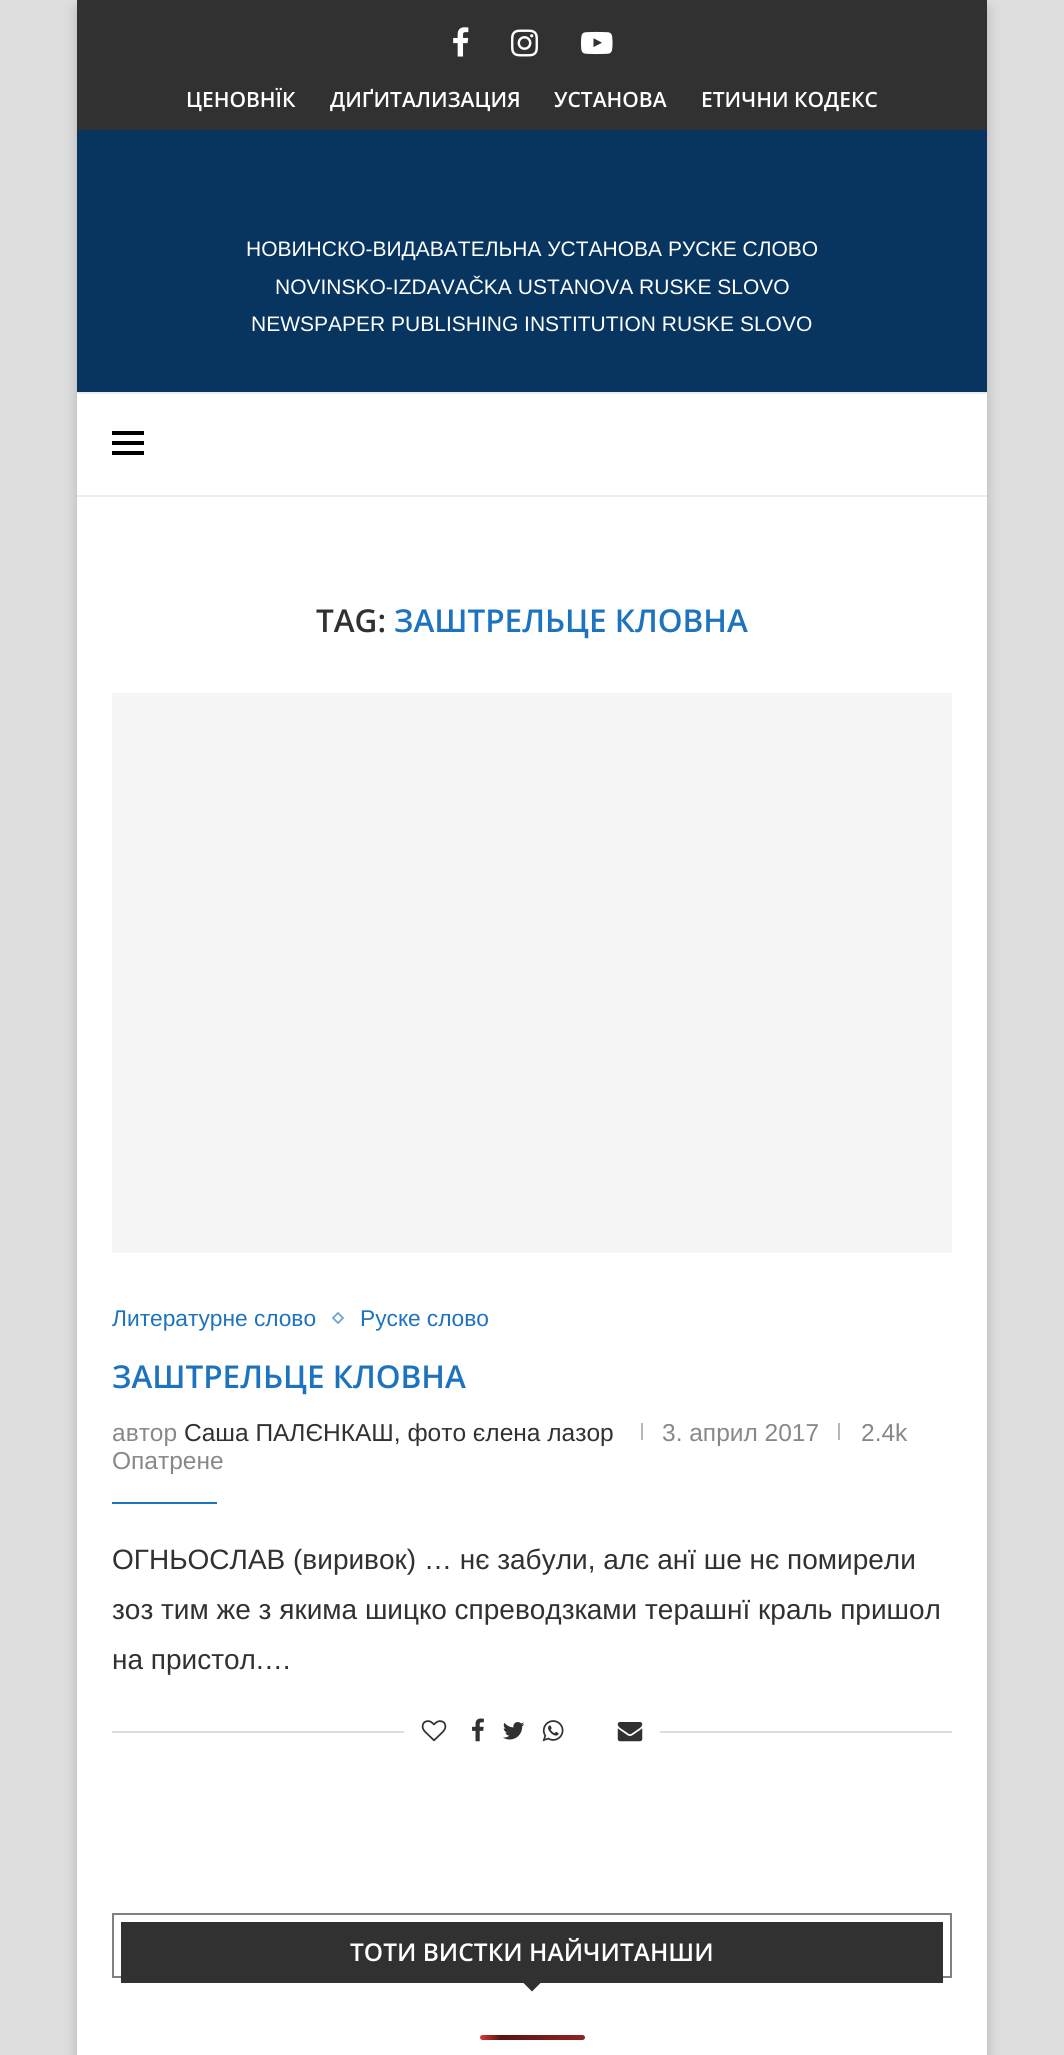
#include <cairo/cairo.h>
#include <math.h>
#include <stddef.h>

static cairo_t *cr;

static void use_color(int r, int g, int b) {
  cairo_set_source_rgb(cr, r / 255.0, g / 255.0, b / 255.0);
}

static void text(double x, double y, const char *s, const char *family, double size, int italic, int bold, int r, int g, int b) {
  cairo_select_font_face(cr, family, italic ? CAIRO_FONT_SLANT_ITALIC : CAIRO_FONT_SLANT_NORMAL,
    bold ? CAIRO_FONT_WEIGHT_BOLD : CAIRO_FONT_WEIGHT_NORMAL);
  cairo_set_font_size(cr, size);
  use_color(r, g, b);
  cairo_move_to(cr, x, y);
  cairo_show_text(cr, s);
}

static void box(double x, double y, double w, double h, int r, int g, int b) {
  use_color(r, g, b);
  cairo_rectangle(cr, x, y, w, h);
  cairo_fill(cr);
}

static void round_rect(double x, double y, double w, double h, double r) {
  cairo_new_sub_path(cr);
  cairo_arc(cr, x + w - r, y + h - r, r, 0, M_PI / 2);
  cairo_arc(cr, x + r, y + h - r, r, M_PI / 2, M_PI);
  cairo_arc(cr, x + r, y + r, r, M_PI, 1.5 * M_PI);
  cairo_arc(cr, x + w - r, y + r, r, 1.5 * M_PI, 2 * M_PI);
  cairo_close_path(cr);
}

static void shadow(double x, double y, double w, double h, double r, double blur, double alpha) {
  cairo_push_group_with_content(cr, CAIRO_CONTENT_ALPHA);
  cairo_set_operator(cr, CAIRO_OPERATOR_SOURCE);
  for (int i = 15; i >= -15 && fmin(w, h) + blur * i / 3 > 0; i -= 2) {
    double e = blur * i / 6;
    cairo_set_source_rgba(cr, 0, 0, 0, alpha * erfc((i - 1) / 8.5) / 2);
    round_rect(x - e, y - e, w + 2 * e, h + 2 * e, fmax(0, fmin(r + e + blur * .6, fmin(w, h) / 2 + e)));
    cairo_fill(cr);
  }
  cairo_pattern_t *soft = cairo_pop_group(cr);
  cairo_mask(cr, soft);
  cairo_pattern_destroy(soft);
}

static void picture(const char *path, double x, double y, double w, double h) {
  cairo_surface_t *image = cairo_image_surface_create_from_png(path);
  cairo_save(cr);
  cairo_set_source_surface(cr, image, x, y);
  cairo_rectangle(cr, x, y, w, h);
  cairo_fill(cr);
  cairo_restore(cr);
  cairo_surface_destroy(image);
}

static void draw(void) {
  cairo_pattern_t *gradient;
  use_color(222, 222, 222);
  cairo_paint(cr);
  use_color(0, 0, 0);
  shadow(77, 9, 910, 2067, 0, 7, 0.2);
  box(77, 394, 910, 1661, 255, 255, 255);
  box(77, 0, 910, 130, 49, 49, 49);
  picture("img_01.png", 453, 27, 16, 30);
  picture("img_02.png", 511, 29, 27, 28);
  picture("img_03.png", 581, 31, 32, 24);
  box(77, 130, 910, 262, 7, 53, 95);
  box(77, 392, 910, 2, 236, 236, 236);
  box(77, 495, 910, 2, 236, 236, 236);
  box(112, 431, 32, 4, 0, 0, 0);
  box(112, 441, 32, 4, 0, 0, 0);
  box(112, 451, 32, 4, 0, 0, 0);
  box(112, 693, 840, 560, 245, 245, 245);
  cairo_new_path(cr);
  cairo_move_to(cr, 338, 1313);
  cairo_line_to(cr, 343, 1318);
  cairo_line_to(cr, 338, 1323);
  cairo_line_to(cr, 333, 1318);
  cairo_close_path(cr);
  use_color(109, 164, 213);
  cairo_set_line_width(cr, 1.8);
  cairo_stroke(cr);
  box(641, 1423, 2, 17, 184, 184, 184);
  box(838, 1423, 2, 17, 184, 184, 184);
  box(112, 1502, 105, 2, 30, 115, 190);
  box(112, 1731, 840, 2, 222, 222, 222);
  box(404, 1731, 256, 2, 255, 255, 255);
  picture("img_04.png", 421, 1720, 26, 22);
  picture("img_05.png", 472, 1718, 12, 24);
  picture("img_06.png", 503, 1722, 22, 18);
  picture("img_07.png", 542, 1720, 22, 22);
  picture("img_08.png", 617, 1722, 26, 20);
  cairo_rectangle(cr, 113, 1914, 838, 63);
  use_color(129, 129, 129);
  cairo_set_line_width(cr, 2);
  cairo_stroke(cr);
  box(121, 1922, 822, 61, 49, 49, 49);
  cairo_new_path(cr);
  cairo_move_to(cr, 521.5, 1981);
  cairo_line_to(cr, 542.5, 1981);
  cairo_line_to(cr, 532, 1991.5);
  cairo_close_path(cr);
  cairo_fill(cr);
  gradient = cairo_pattern_create_linear(480, 2038, 690, 2038);
  cairo_pattern_add_color_stop_rgba(gradient, 0, 0.867, 0.216, 0.216, 1);
  cairo_pattern_add_color_stop_rgba(gradient, 0.1, 0.341, 0.075, 0.075, 1);
  cairo_pattern_add_color_stop_rgba(gradient, 1, 0.867, 0.216, 0.216, 1);
  cairo_set_source(cr, gradient);
  cairo_pattern_destroy(gradient);
  round_rect(480, 2035, 105, 5, 2.5);
  cairo_fill(cr);
  text(186, 107, "ЦЕНОВНЇК", "Open Sans SemiBold", 21, 0, 0, 255, 255, 255);
  text(330, 107, "ДИҐИТАЛИЗАЦИЯ", "Open Sans SemiBold", 21, 0, 0, 255, 255, 255);
  text(554, 107, "УСТАНОВА", "Open Sans SemiBold", 21, 0, 0, 255, 255, 255);
  text(701, 107, "ЕТИЧНИ КОДЕКС", "Open Sans SemiBold", 21, 0, 0, 255, 255, 255);
  text(246, 256, "НОВИНСКО-ВИДАВАТЕЛЬНА УСТАНОВА РУСКЕ СЛОВО", "Liberation Sans", 21, 0, 0, 255, 255, 255);
  text(275, 294, "NOVINSKO-IZDAVAČKA USTANOVA RUSKE SLOVO", "Liberation Sans", 21, 0, 0, 255, 255, 255);
  text(251, 331, "NEWSPAPER PUBLISHING INSTITUTION RUSKE SLOVO", "Liberation Sans", 21, 0, 0, 255, 255, 255);
  text(316, 632, "TAG:", "Open Sans SemiBold", 31.5, 0, 0, 49, 49, 49);
  text(394, 632, "ЗАШТРЕЛЬЦЕ КЛОВНА", "Open Sans SemiBold", 31.5, 0, 0, 30, 115, 190);
  text(112, 1326, "Литературне слово", "Liberation Sans", 22.75, 0, 0, 30, 115, 190);
  text(360, 1326, "Руске слово", "Liberation Sans", 22.75, 0, 0, 30, 115, 190);
  text(112, 1388, "ЗАШТРЕЛЬЦЕ КЛОВНА", "Open Sans SemiBold", 31.5, 0, 0, 30, 115, 190);
  text(112, 1441, "автор", "Liberation Sans", 24.5, 0, 0, 136, 136, 136);
  text(184, 1441, "Саша ПАЛЄНКАШ, фото єлена лазор", "Liberation Sans", 24.5, 0, 0, 49, 49, 49);
  text(662, 1441, "3. април 2017", "Liberation Sans", 24.5, 0, 0, 136, 136, 136);
  text(861, 1441, "2.4k", "Liberation Sans", 24.5, 0, 0, 136, 136, 136);
  text(112, 1469, "Опатрене", "Liberation Sans", 24.5, 0, 0, 136, 136, 136);
  text(112, 1569, "ОГНЬОСЛАВ (виривок) … нє забули, алє анї ше нє помирели", "Liberation Sans", 28, 0, 0, 49, 49, 49);
  text(112, 1619, "зоз тим же з якима шицко спреводзками терашнї краль пришол", "Liberation Sans", 28, 0, 0, 49, 49, 49);
  text(112, 1669, "на пристол.…", "Liberation Sans", 28, 0, 0, 49, 49, 49);
  text(350, 1961, "ТОТИ ВИСТКИ НАЙЧИТАНШИ", "Open Sans SemiBold", 24.5, 0, 0, 255, 255, 255);
}

int main(void) {
  cairo_surface_t *surface = cairo_image_surface_create(CAIRO_FORMAT_RGB24, 1064, 2055);
  cr = cairo_create(surface);
  cairo_font_options_t *options = cairo_font_options_create();
  cairo_font_options_set_hint_metrics(options, CAIRO_HINT_METRICS_OFF);
  cairo_font_options_set_hint_style(options, CAIRO_HINT_STYLE_NONE);
  cairo_set_font_options(cr, options);
  cairo_set_miter_limit(cr, 4);
  draw();
  cairo_surface_write_to_png(surface, "out.png");
  cairo_font_options_destroy(options);
  cairo_destroy(cr);
  cairo_surface_destroy(surface);
  return 0;
}
